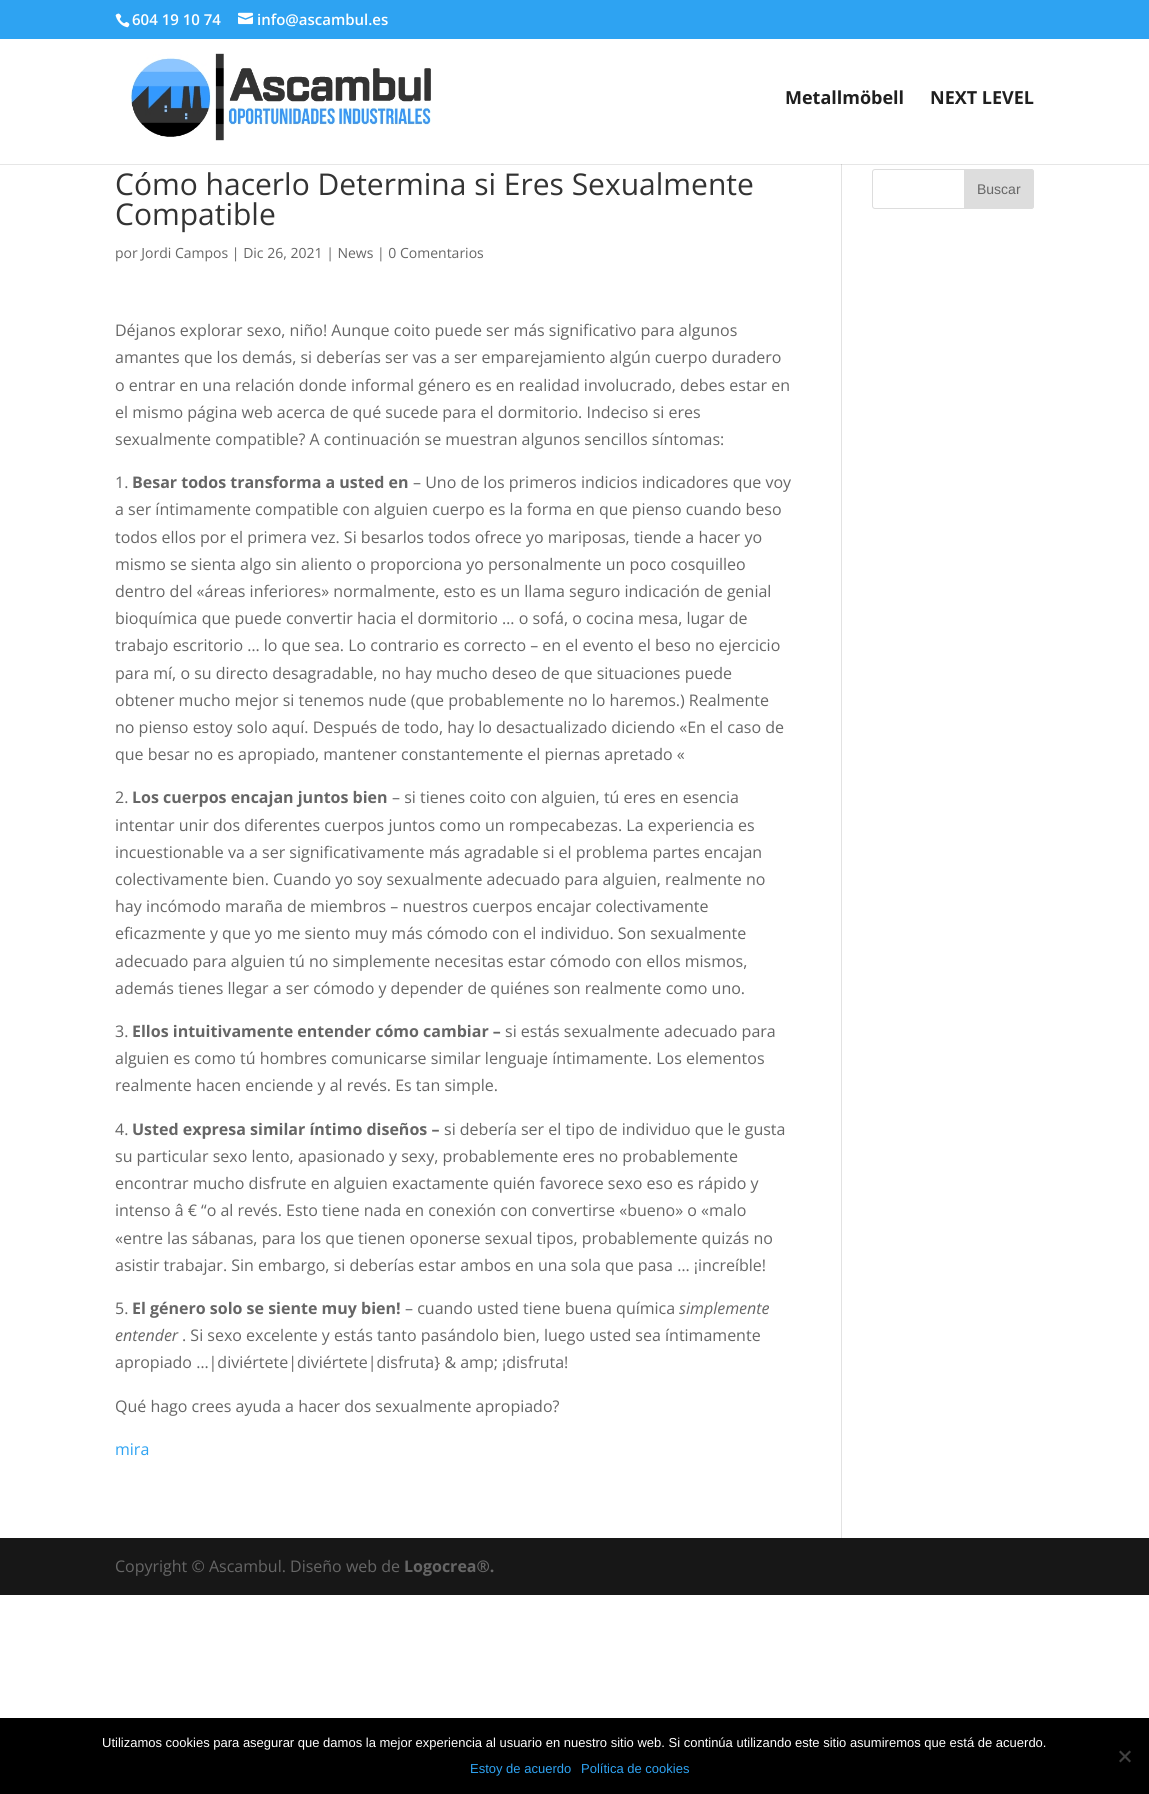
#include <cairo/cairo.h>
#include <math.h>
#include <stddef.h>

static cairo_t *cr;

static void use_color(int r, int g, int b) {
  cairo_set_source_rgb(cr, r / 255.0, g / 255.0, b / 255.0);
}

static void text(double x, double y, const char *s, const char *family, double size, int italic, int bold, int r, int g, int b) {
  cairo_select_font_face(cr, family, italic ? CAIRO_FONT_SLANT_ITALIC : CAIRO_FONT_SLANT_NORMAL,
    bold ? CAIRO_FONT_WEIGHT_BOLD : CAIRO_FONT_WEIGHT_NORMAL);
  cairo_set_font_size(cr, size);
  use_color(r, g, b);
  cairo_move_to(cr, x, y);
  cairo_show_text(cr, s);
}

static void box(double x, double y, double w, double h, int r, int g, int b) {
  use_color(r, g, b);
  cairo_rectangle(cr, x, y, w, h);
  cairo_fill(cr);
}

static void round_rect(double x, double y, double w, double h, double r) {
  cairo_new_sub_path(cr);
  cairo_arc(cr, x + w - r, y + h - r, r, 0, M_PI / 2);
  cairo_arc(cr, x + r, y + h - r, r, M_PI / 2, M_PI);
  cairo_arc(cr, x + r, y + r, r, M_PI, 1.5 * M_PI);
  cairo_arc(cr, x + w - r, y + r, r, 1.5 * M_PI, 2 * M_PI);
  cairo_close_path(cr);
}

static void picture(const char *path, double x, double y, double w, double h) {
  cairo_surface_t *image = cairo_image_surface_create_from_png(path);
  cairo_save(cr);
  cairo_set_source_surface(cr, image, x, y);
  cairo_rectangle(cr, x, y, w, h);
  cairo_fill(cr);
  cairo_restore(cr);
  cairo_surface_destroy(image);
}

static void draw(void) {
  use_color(255, 255, 255);
  cairo_paint(cr);
  box(0, 164, 1149, 1, 230, 230, 230);
  box(0, 0, 1149, 39, 46, 163, 242);
  picture("img_01.png", 115, 13, 15, 15);
  picture("img_02.png", 238, 12, 15, 13);
  picture("img_03.png", 130, 53, 301, 88);
  box(841, 165, 1, 1373, 226, 226, 226);
  box(841, 164, 1, 1, 203, 203, 203);
  round_rect(872.5, 169.5, 161, 39, 2.5);
  use_color(221, 221, 221);
  cairo_set_line_width(cr, 1);
  cairo_stroke(cr);
  cairo_new_path(cr);
  cairo_move_to(cr, 964.5, 169.5);
  cairo_line_to(cr, 1031, 169.5);
  cairo_curve_to(cr, 1032.5, 169.5, 1033.5, 170.5, 1033.5, 172);
  cairo_line_to(cr, 1033.5, 206);
  cairo_curve_to(cr, 1033.5, 207.5, 1032.5, 208.5, 1031, 208.5);
  cairo_line_to(cr, 964.5, 208.5);
  cairo_close_path(cr);
  cairo_fill_preserve(cr);
  cairo_stroke(cr);
  box(0, 1538, 1149, 57, 23, 23, 23);
  box(0, 1718, 1149, 76, 0, 0, 0);
  use_color(64, 64, 64);
  cairo_new_path(cr);
  cairo_move_to(cr, 1129.5, 1750.5);
  cairo_line_to(cr, 1131, 1752);
  cairo_line_to(cr, 1120.5, 1762.5);
  cairo_line_to(cr, 1119, 1761);
  cairo_close_path(cr);
  cairo_fill(cr);
  cairo_new_path(cr);
  cairo_move_to(cr, 1119, 1752);
  cairo_line_to(cr, 1120.5, 1750.5);
  cairo_line_to(cr, 1131, 1761);
  cairo_line_to(cr, 1129.5, 1762.5);
  cairo_close_path(cr);
  cairo_fill(cr);
  text(132, 25, "604 19 10 74", "Open Sans SemiBold", 15, 0, 0, 255, 255, 255);
  text(257, 25, "info@ascambul.es", "Open Sans SemiBold", 15, 0, 0, 255, 255, 255);
  text(785, 104, "Metallmöbell", "Open Sans", 18, 0, 1, 31, 31, 31);
  text(930, 104, "NEXT LEVEL", "Open Sans", 18, 0, 1, 31, 31, 31);
  text(115, 195, "Cómo hacerlo Determina si Eres Sexualmente", "Open Sans", 30, 0, 0, 51, 51, 51);
  text(115, 225, "Compatible", "Open Sans", 30, 0, 0, 51, 51, 51);
  text(115, 258, "por Jordi Campos | Dic 26, 2021 | News | 0 Comentarios", "Open Sans", 14, 0, 0, 102, 102, 102);
  text(115, 336, "Déjanos explorar sexo, niño! Aunque coito puede ser más significativo para algunos", "Open Sans", 16, 0, 0, 102, 102, 102);
  text(115, 363, "amantes que los demás, si deberías ser vas a ser emparejamiento algún cuerpo duradero", "Open Sans", 16, 0, 0, 102, 102, 102);
  text(115, 391, "o entrar en una relación donde informal género es en realidad involucrado, debes estar en", "Open Sans", 16, 0, 0, 102, 102, 102);
  text(115, 418, "el mismo página web acerca de qué sucede para el dormitorio. Indeciso si eres", "Open Sans", 16, 0, 0, 102, 102, 102);
  text(115, 445, "sexualmente compatible? A continuación se muestran algunos sencillos síntomas:", "Open Sans", 16, 0, 0, 102, 102, 102);
  text(115, 488, "1.", "Open Sans", 16, 0, 0, 102, 102, 102);
  text(132, 488, "Besar todos transforma a usted en", "Open Sans", 16, 0, 1, 102, 102, 102);
  text(413, 488, "– Uno de los primeros indicios indicadores que voy", "Open Sans", 16, 0, 0, 102, 102, 102);
  text(115, 515, "a ser íntimamente compatible con alguien cuerpo es la forma en que pienso cuando beso", "Open Sans", 16, 0, 0, 102, 102, 102);
  text(115, 543, "todos ellos por el primera vez. Si besarlos todos ofrece yo mariposas, tiende a hacer yo", "Open Sans", 16, 0, 0, 102, 102, 102);
  text(115, 570, "mismo se sienta algo sin aliento o proporciona yo personalmente un poco cosquilleo", "Open Sans", 16, 0, 0, 102, 102, 102);
  text(115, 597, "dentro del «áreas inferiores» normalmente, esto es un llama seguro indicación de genial", "Open Sans", 16, 0, 0, 102, 102, 102);
  text(115, 624, "bioquímica que puede convertir hacia el dormitorio … o sofá, o cocina mesa, lugar de", "Open Sans", 16, 0, 0, 102, 102, 102);
  text(115, 651, "trabajo escritorio … lo que sea. Lo contrario es correcto – en el evento el beso no ejercicio", "Open Sans", 16, 0, 0, 102, 102, 102);
  text(115, 679, "para mí, o su directo desagradable, no hay mucho deseo de que situaciones puede", "Open Sans", 16, 0, 0, 102, 102, 102);
  text(115, 706, "obtener mucho mejor si tenemos nude (que probablemente no lo haremos.) Realmente", "Open Sans", 16, 0, 0, 102, 102, 102);
  text(115, 733, "no pienso estoy solo aquí. Después de todo, hay lo desactualizado diciendo «En el caso de", "Open Sans", 16, 0, 0, 102, 102, 102);
  text(115, 760, "que besar no es apropiado, mantener constantemente el piernas apretado «", "Open Sans", 16, 0, 0, 102, 102, 102);
  text(115, 803, "2.", "Open Sans", 16, 0, 0, 102, 102, 102);
  text(132, 803, "Los cuerpos encajan juntos bien", "Open Sans", 16, 0, 1, 102, 102, 102);
  text(392, 803, "– si tienes coito con alguien, tú eres en esencia", "Open Sans", 16, 0, 0, 102, 102, 102);
  text(115, 831, "intentar unir dos diferentes cuerpos juntos como un rompecabezas. La experiencia es", "Open Sans", 16, 0, 0, 102, 102, 102);
  text(115, 858, "incuestionable va a ser significativamente más agradable si el problema partes encajan", "Open Sans", 16, 0, 0, 102, 102, 102);
  text(115, 885, "colectivamente bien. Cuando yo soy sexualmente adecuado para alguien, realmente no", "Open Sans", 16, 0, 0, 102, 102, 102);
  text(115, 912, "hay incómodo maraña de miembros – nuestros cuerpos encajar colectivamente", "Open Sans", 16, 0, 0, 102, 102, 102);
  text(115, 939, "eficazmente y que yo me siento muy más cómodo con el individuo. Son sexualmente", "Open Sans", 16, 0, 0, 102, 102, 102);
  text(115, 967, "adecuado para alguien tú no simplemente necesitas estar cómodo con ellos mismos,", "Open Sans", 16, 0, 0, 102, 102, 102);
  text(115, 994, "además tienes llegar a ser cómodo y depender de quiénes son realmente como uno.", "Open Sans", 16, 0, 0, 102, 102, 102);
  text(115, 1037, "3.", "Open Sans", 16, 0, 0, 102, 102, 102);
  text(132, 1037, "Ellos intuitivamente entender cómo cambiar –", "Open Sans", 16, 0, 1, 102, 102, 102);
  text(505, 1037, "si estás sexualmente adecuado para", "Open Sans", 16, 0, 0, 102, 102, 102);
  text(115, 1064, "alguien es como tú hombres comunicarse similar lenguaje íntimamente. Los elementos", "Open Sans", 16, 0, 0, 102, 102, 102);
  text(115, 1091, "realmente hacen enciende y al revés. Es tan simple.", "Open Sans", 16, 0, 0, 102, 102, 102);
  text(115, 1135, "4.", "Open Sans", 16, 0, 0, 102, 102, 102);
  text(132, 1135, "Usted expresa similar íntimo diseños –", "Open Sans", 16, 0, 1, 102, 102, 102);
  text(444, 1135, "si debería ser el tipo de individuo que le gusta", "Open Sans", 16, 0, 0, 102, 102, 102);
  text(115, 1162, "su particular sexo lento, apasionado y sexy, probablemente eres no probablemente", "Open Sans", 16, 0, 0, 102, 102, 102);
  text(115, 1189, "encontrar mucho disfrute en alguien exactamente quién favorece sexo eso es rápido y", "Open Sans", 16, 0, 0, 102, 102, 102);
  text(115, 1216, "intenso â € “o al revés. Esto tiene nada en conexión con convertirse «bueno» o «malo", "Open Sans", 16, 0, 0, 102, 102, 102);
  text(115, 1244, "«entre las sábanas, para los que tienen oponerse sexual tipos, probablemente quizás no", "Open Sans", 16, 0, 0, 102, 102, 102);
  text(115, 1271, "asistir trabajar. Sin embargo, si deberías estar ambos en una sola que pasa … ¡increíble!", "Open Sans", 16, 0, 0, 102, 102, 102);
  text(115, 1314, "5.", "Open Sans", 16, 0, 0, 102, 102, 102);
  text(132, 1314, "El género solo se siente muy bien!", "Open Sans", 16, 0, 1, 102, 102, 102);
  text(405, 1314, "– cuando usted tiene buena química", "Open Sans", 16, 0, 0, 102, 102, 102);
  text(679, 1314, "simplemente", "Open Sans", 16, 1, 0, 102, 102, 102);
  text(115, 1341, "entender", "Open Sans", 16, 1, 0, 102, 102, 102);
  text(182, 1341, ". Si sexo excelente y estás tanto pasándolo bien, luego usted sea íntimamente", "Open Sans", 16, 0, 0, 102, 102, 102);
  text(115, 1368, "apropiado …|diviértete|diviértete|disfruta} & amp; ¡disfruta!", "Open Sans", 16, 0, 0, 102, 102, 102);
  text(115, 1412, "Qué hago crees ayuda a hacer dos sexualmente apropiado?", "Open Sans", 16, 0, 0, 102, 102, 102);
  text(115, 1455, "mira", "Open Sans", 16, 0, 0, 46, 163, 242);
  text(977, 194, "Buscar", "Liberation Sans", 14, 0, 0, 102, 102, 102);
  text(115, 1572, "Copyright © Ascambul. Diseño web de", "Open Sans", 16, 0, 0, 102, 102, 102);
  text(404, 1572, "Logocrea®.", "Open Sans", 16, 0, 1, 102, 102, 102);
  text(102, 1747, "Utilizamos cookies para asegurar que damos la mejor experiencia al usuario en nuestro sitio web. Si continúa utilizando este sitio asumiremos que está de acuerdo.", "Liberation Sans", 13, 0, 0, 255, 255, 255);
  text(470, 1773, "Estoy de acuerdo", "Liberation Sans", 13, 0, 0, 46, 163, 242);
  text(581, 1773, "Política de cookies", "Liberation Sans", 13, 0, 0, 46, 163, 242);
}

int main(void) {
  cairo_surface_t *surface = cairo_image_surface_create(CAIRO_FORMAT_RGB24, 1149, 1794);
  cr = cairo_create(surface);
  cairo_font_options_t *options = cairo_font_options_create();
  cairo_font_options_set_hint_metrics(options, CAIRO_HINT_METRICS_OFF);
  cairo_font_options_set_hint_style(options, CAIRO_HINT_STYLE_NONE);
  cairo_set_font_options(cr, options);
  cairo_set_miter_limit(cr, 4);
  draw();
  cairo_surface_write_to_png(surface, "out.png");
  cairo_font_options_destroy(options);
  cairo_destroy(cr);
  cairo_surface_destroy(surface);
  return 0;
}
